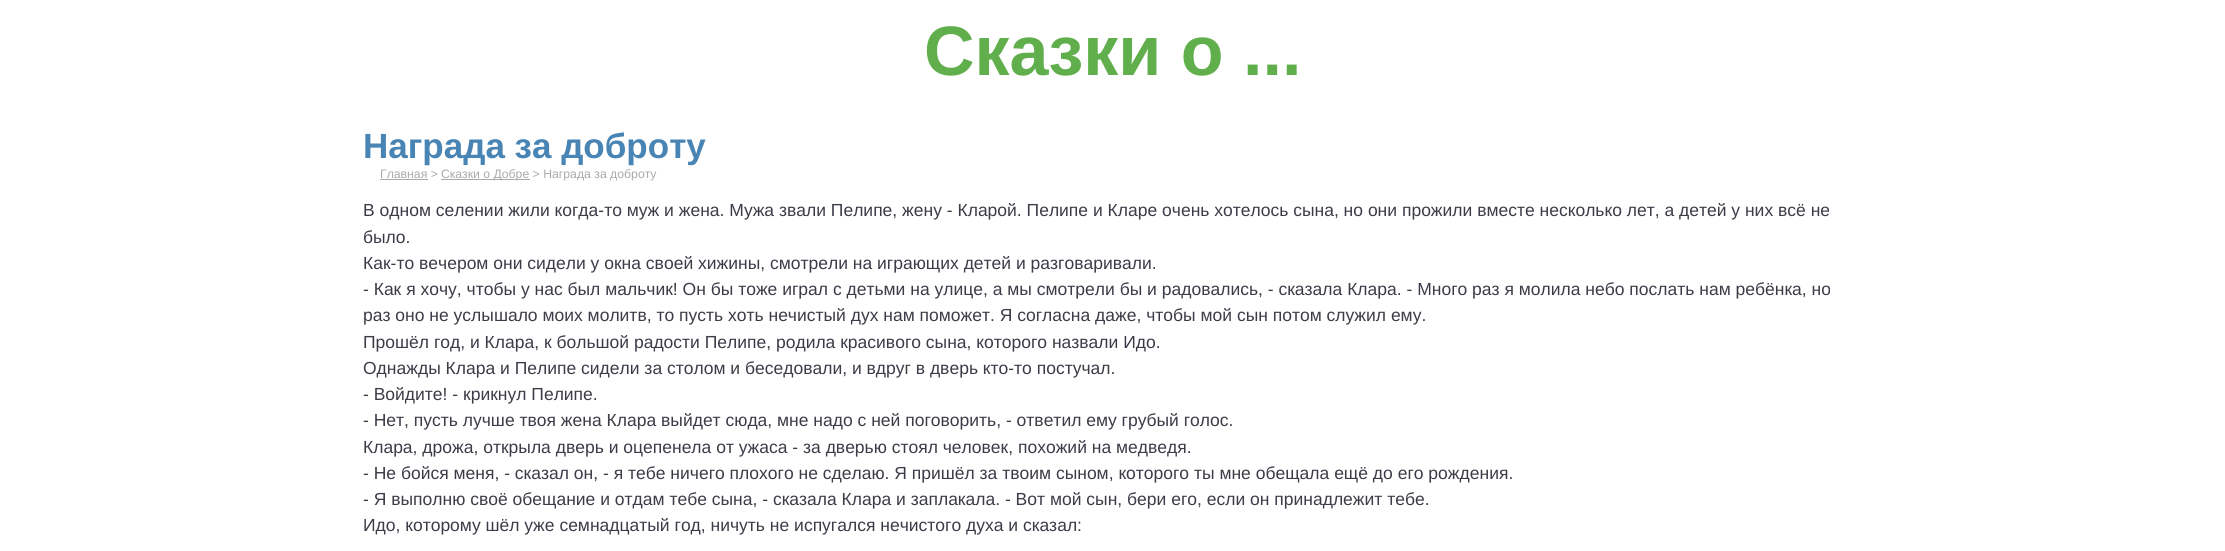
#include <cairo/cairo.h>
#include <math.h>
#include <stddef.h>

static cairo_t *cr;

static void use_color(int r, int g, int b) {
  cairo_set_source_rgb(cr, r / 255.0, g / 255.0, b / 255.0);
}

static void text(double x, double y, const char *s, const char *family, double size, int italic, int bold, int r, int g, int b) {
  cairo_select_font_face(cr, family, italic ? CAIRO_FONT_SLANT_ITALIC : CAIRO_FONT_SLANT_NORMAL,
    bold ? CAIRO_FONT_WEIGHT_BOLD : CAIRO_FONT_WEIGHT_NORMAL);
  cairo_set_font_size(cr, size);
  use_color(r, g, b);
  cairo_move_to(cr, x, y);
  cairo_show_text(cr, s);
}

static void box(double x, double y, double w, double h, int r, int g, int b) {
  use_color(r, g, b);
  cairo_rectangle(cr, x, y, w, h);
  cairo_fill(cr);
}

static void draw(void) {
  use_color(255, 255, 255);
  cairo_paint(cr);
  box(380, 179, 48, 1, 170, 170, 170);
  box(441, 179, 89, 1, 170, 170, 170);
  text(924, 75, "Сказки о ...", "Liberation Sans", 70, 0, 1, 96, 174, 76);
  text(363, 158, "Награда за доброту", "Liberation Sans", 35, 0, 1, 72, 132, 180);
  text(380, 178, "Главная >", "Liberation Sans", 12.25, 0, 0, 170, 170, 170);
  text(441, 178, "Сказки о Добре > Награда за доброту", "Liberation Sans", 12.25, 0, 0, 170, 170, 170);
  text(363, 216, "В одном селении жили когда-то муж и жена. Мужа звали Пелипе, жену - Кларой. Пелипе и Кларе очень хотелось сына, но они прожили вместе несколько лет, а детей у них всё не", "Liberation Sans", 17.5, 0, 0, 60, 60, 72);
  text(363, 243, "было.", "Liberation Sans", 17.5, 0, 0, 60, 60, 72);
  text(363, 269, "Как-то вечером они сидели у окна своей хижины, смотрели на играющих детей и разговаривали.", "Liberation Sans", 17.5, 0, 0, 60, 60, 72);
  text(363, 295, "- Как я хочу, чтобы у нас был мальчик! Он бы тоже играл с детьми на улице, а мы смотрели бы и радовались, - сказала Клара. - Много раз я молила небо послать нам ребёнка, но", "Liberation Sans", 17.5, 0, 0, 60, 60, 72);
  text(363, 321, "раз оно не услышало моих молитв, то пусть хоть нечистый дух нам поможет. Я согласна даже, чтобы мой сын потом служил ему.", "Liberation Sans", 17.5, 0, 0, 60, 60, 72);
  text(363, 348, "Прошёл год, и Клара, к большой радости Пелипе, родила красивого сына, которого назвали Идо.", "Liberation Sans", 17.5, 0, 0, 60, 60, 72);
  text(363, 374, "Однажды Клара и Пелипе сидели за столом и беседовали, и вдруг в дверь кто-то постучал.", "Liberation Sans", 17.5, 0, 0, 60, 60, 72);
  text(363, 400, "- Войдите! - крикнул Пелипе.", "Liberation Sans", 17.5, 0, 0, 60, 60, 72);
  text(363, 426, "- Нет, пусть лучше твоя жена Клара выйдет сюда, мне надо с ней поговорить, - ответил ему грубый голос.", "Liberation Sans", 17.5, 0, 0, 60, 60, 72);
  text(363, 453, "Клара, дрожа, открыла дверь и оцепенела от ужаса - за дверью стоял человек, похожий на медведя.", "Liberation Sans", 17.5, 0, 0, 60, 60, 72);
  text(363, 479, "- Не бойся меня, - сказал он, - я тебе ничего плохого не сделаю. Я пришёл за твоим сыном, которого ты мне обещала ещё до его рождения.", "Liberation Sans", 17.5, 0, 0, 60, 60, 72);
  text(363, 505, "- Я выполню своё обещание и отдам тебе сына, - сказала Клара и заплакала. - Вот мой сын, бери его, если он принадлежит тебе.", "Liberation Sans", 17.5, 0, 0, 60, 60, 72);
  text(363, 531, "Идо, которому шёл уже семнадцатый год, ничуть не испугался нечистого духа и сказал:", "Liberation Sans", 17.5, 0, 0, 60, 60, 72);
}

int main(void) {
  cairo_surface_t *surface = cairo_image_surface_create(CAIRO_FORMAT_RGB24, 2225, 551);
  cr = cairo_create(surface);
  cairo_font_options_t *options = cairo_font_options_create();
  cairo_font_options_set_hint_metrics(options, CAIRO_HINT_METRICS_OFF);
  cairo_font_options_set_hint_style(options, CAIRO_HINT_STYLE_NONE);
  cairo_set_font_options(cr, options);
  cairo_set_miter_limit(cr, 4);
  draw();
  cairo_surface_write_to_png(surface, "out.png");
  cairo_font_options_destroy(options);
  cairo_destroy(cr);
  cairo_surface_destroy(surface);
  return 0;
}
